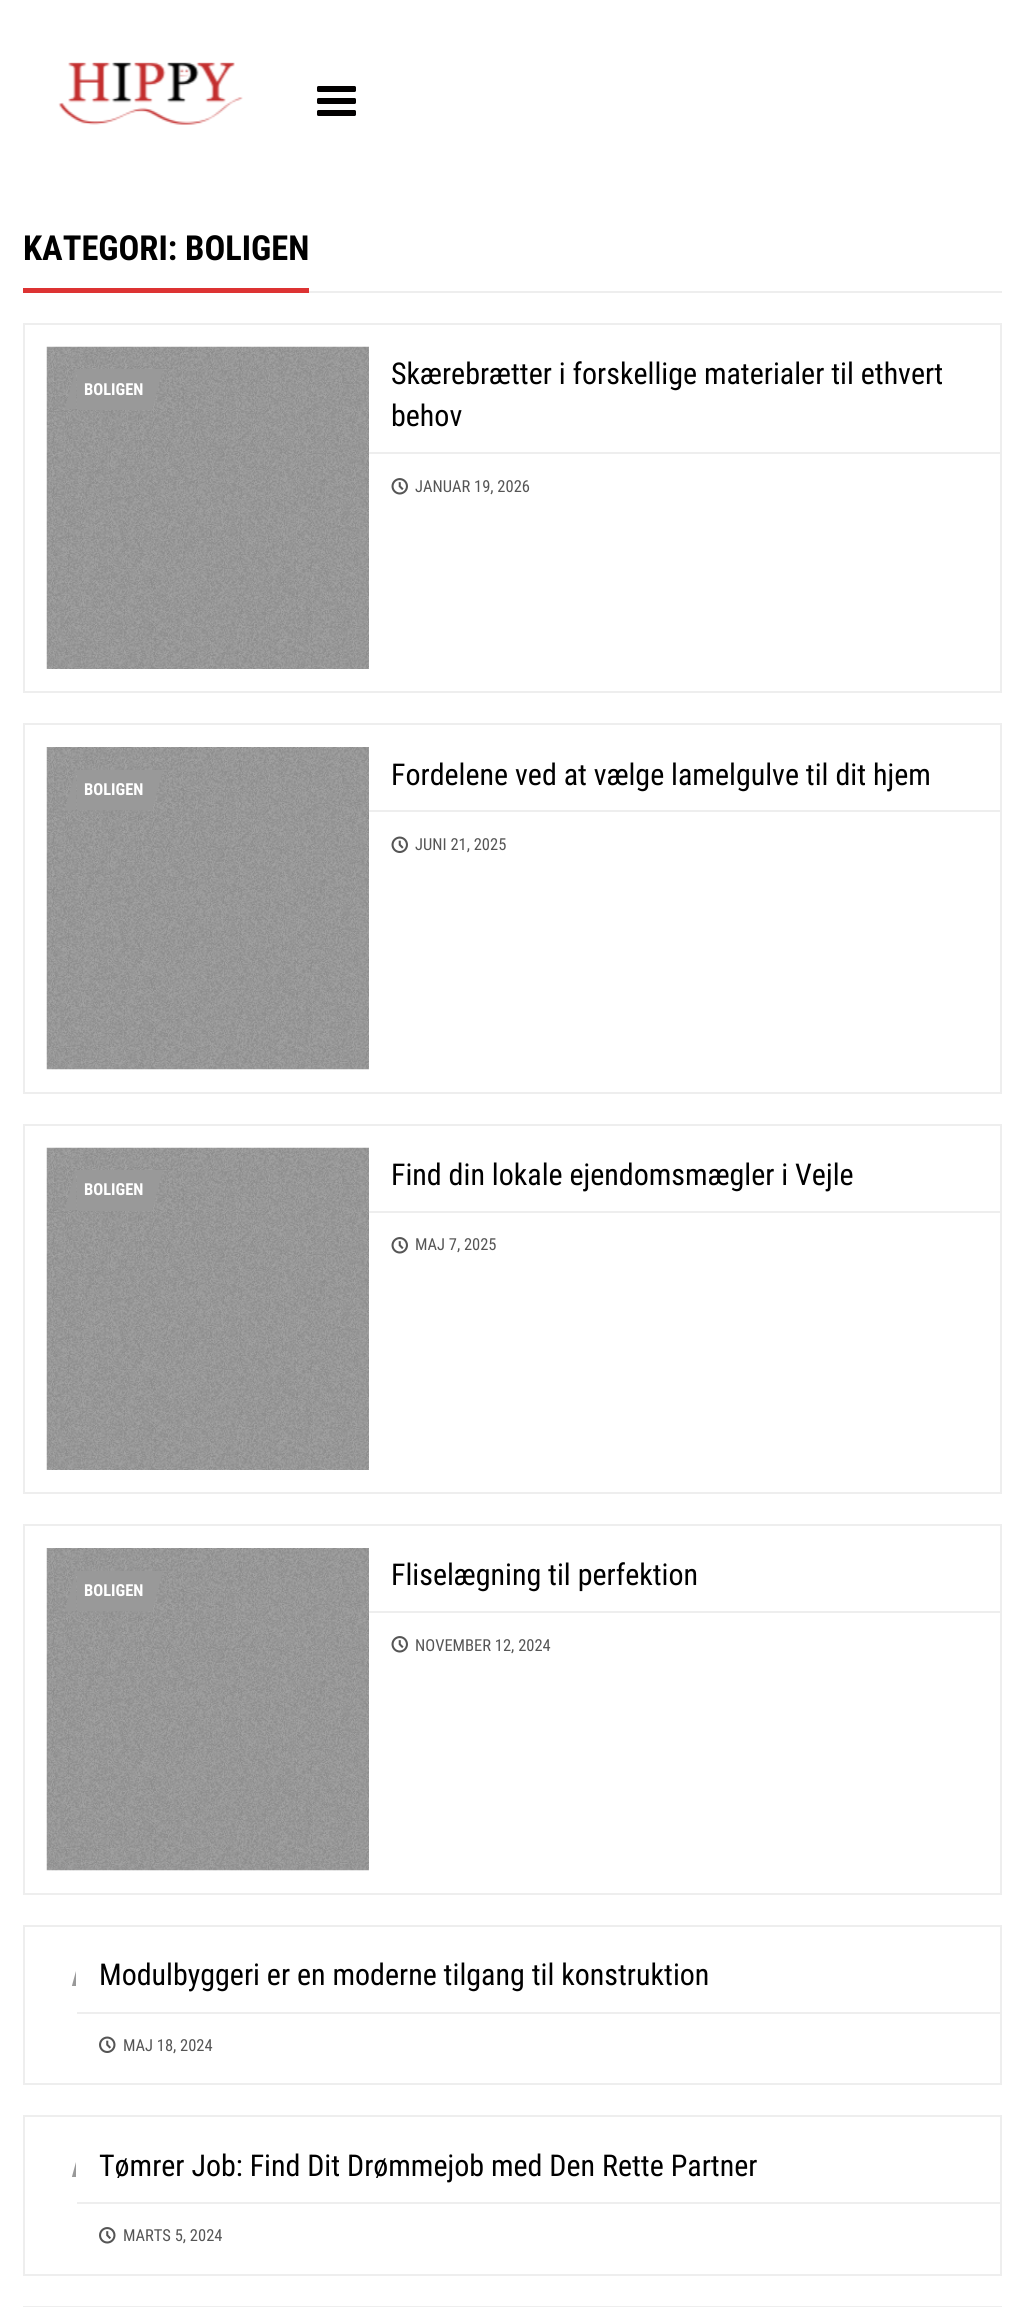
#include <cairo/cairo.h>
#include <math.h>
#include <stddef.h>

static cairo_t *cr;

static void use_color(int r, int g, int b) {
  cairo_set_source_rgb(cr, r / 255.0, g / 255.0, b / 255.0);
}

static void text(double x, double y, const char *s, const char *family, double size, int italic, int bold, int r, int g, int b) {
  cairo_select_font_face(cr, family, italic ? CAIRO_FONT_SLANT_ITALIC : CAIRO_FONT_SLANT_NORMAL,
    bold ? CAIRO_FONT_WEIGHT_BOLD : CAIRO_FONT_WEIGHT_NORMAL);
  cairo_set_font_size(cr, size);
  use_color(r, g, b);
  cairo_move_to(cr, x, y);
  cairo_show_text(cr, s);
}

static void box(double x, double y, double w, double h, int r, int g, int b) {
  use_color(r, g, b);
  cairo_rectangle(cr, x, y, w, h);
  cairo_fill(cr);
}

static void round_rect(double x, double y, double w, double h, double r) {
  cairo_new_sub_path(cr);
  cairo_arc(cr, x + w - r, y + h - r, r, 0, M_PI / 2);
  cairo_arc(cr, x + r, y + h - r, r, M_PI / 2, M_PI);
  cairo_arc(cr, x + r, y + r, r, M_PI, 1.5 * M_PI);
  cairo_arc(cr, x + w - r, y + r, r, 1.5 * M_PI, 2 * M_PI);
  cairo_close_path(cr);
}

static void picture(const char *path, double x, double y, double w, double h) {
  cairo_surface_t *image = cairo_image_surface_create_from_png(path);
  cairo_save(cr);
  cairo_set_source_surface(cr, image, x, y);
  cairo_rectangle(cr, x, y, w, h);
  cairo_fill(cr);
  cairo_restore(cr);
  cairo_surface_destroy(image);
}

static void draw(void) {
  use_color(255, 255, 255);
  cairo_paint(cr);
  picture("img_01.png", 58, 62, 185, 63);
  use_color(2, 0, 0);
  round_rect(317, 98, 39, 6, 1.5);
  cairo_fill(cr);
  round_rect(317, 86, 39, 6, 1.5);
  cairo_fill(cr);
  round_rect(317, 110, 39, 6, 1.5);
  cairo_fill(cr);
  box(309, 291, 693, 2, 238, 238, 238);
  box(23, 288, 286, 5, 221, 51, 51);
  cairo_rectangle(cr, 24, 324, 977, 368);
  use_color(238, 238, 238);
  cairo_stroke(cr);
  picture("img_02.png", 46, 346, 323, 323);
  box(77, 369, 75, 41, 153, 153, 153);
  cairo_new_path(cr);
  cairo_move_to(cr, 76, 369);
  cairo_line_to(cr, 76, 409);
  cairo_line_to(cr, 65, 409);
  cairo_close_path(cr);
  cairo_fill(cr);
  cairo_new_path(cr);
  cairo_move_to(cr, 152, 409);
  cairo_line_to(cr, 152, 369);
  cairo_line_to(cr, 163, 369);
  cairo_close_path(cr);
  cairo_fill(cr);
  box(369, 452, 632, 2, 238, 238, 238);
  picture("img_03.png", 391, 478, 17, 17);
  cairo_rectangle(cr, 24, 724, 977, 369);
  cairo_stroke(cr);
  picture("img_04.png", 46, 747, 323, 323);
  box(77, 770, 75, 40, 153, 153, 153);
  cairo_new_path(cr);
  cairo_move_to(cr, 76, 770);
  cairo_line_to(cr, 76, 810);
  cairo_line_to(cr, 65, 810);
  cairo_close_path(cr);
  cairo_fill(cr);
  cairo_new_path(cr);
  cairo_move_to(cr, 152, 810);
  cairo_line_to(cr, 152, 770);
  cairo_line_to(cr, 163, 770);
  cairo_close_path(cr);
  cairo_fill(cr);
  box(369, 810, 632, 2, 238, 238, 238);
  picture("img_05.png", 391, 836, 17, 17);
  cairo_rectangle(cr, 24, 1125, 977, 368);
  cairo_stroke(cr);
  picture("img_02.png", 46, 1147, 323, 323);
  box(77, 1170, 75, 41, 153, 153, 153);
  cairo_new_path(cr);
  cairo_move_to(cr, 76, 1170);
  cairo_line_to(cr, 76, 1210);
  cairo_line_to(cr, 65, 1210);
  cairo_close_path(cr);
  cairo_fill(cr);
  cairo_new_path(cr);
  cairo_move_to(cr, 152, 1210);
  cairo_line_to(cr, 152, 1170);
  cairo_line_to(cr, 163, 1170);
  cairo_close_path(cr);
  cairo_fill(cr);
  box(369, 1211, 632, 2, 238, 238, 238);
  picture("img_03.png", 391, 1237, 17, 17);
  cairo_rectangle(cr, 24, 1525, 977, 369);
  cairo_stroke(cr);
  picture("img_04.png", 46, 1548, 323, 323);
  box(77, 1571, 75, 40, 153, 153, 153);
  cairo_new_path(cr);
  cairo_move_to(cr, 76, 1571);
  cairo_line_to(cr, 76, 1611);
  cairo_line_to(cr, 65, 1611);
  cairo_close_path(cr);
  cairo_fill(cr);
  cairo_new_path(cr);
  cairo_move_to(cr, 152, 1611);
  cairo_line_to(cr, 152, 1571);
  cairo_line_to(cr, 163, 1571);
  cairo_close_path(cr);
  cairo_fill(cr);
  box(369, 1611, 632, 2, 238, 238, 238);
  picture("img_03.png", 391, 1636, 17, 17);
  cairo_rectangle(cr, 24, 1926, 977, 158);
  cairo_stroke(cr);
  cairo_save(cr);
  cairo_rectangle(cr, 47, 1949, 30, 37);
  cairo_clip(cr);
  use_color(153, 153, 153);
  cairo_new_path(cr);
  cairo_move_to(cr, 76, 1971);
  cairo_line_to(cr, 76, 2011);
  cairo_line_to(cr, 65, 2011);
  cairo_close_path(cr);
  cairo_fill(cr);
  cairo_restore(cr);
  box(77, 2012, 924, 2, 238, 238, 238);
  picture("img_06.png", 99, 2036, 17, 17);
  cairo_rectangle(cr, 24, 2116, 977, 159);
  cairo_stroke(cr);
  cairo_save(cr);
  cairo_rectangle(cr, 47, 2139, 30, 38);
  cairo_clip(cr);
  use_color(153, 153, 153);
  cairo_new_path(cr);
  cairo_move_to(cr, 76, 2162);
  cairo_line_to(cr, 76, 2202);
  cairo_line_to(cr, 65, 2202);
  cairo_close_path(cr);
  cairo_fill(cr);
  cairo_restore(cr);
  box(77, 2202, 924, 2, 238, 238, 238);
  picture("img_07.png", 99, 2227, 17, 17);
  cairo_rectangle(cr, 24, 2307, 977, 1);
  cairo_stroke(cr);
  text(23, 260, "KATEGORI: BOLIGEN", "Roboto Condensed", 34.5, 0, 1, 0, 0, 0);
  text(84, 395, "BOLIGEN", "Roboto Condensed", 16.5, 0, 1, 255, 255, 255);
  text(391, 384, "Skærebrætter i forskellige materialer til ethvert", "Roboto Condensed", 30, 0, 0, 0, 0, 0);
  text(391, 426, "behov", "Roboto Condensed", 30, 0, 0, 0, 0, 0);
  text(415, 492, "JANUAR 19, 2026", "Roboto Condensed", 16.5, 0, 0, 85, 85, 85);
  text(84, 795, "BOLIGEN", "Roboto Condensed", 16.5, 0, 1, 255, 255, 255);
  text(391, 785, "Fordelene ved at vælge lamelgulve til dit hjem", "Roboto Condensed", 30, 0, 0, 0, 0, 0);
  text(415, 850, "JUNI 21, 2025", "Roboto Condensed", 16.5, 0, 0, 85, 85, 85);
  text(84, 1195, "BOLIGEN", "Roboto Condensed", 16.5, 0, 1, 255, 255, 255);
  text(391, 1185, "Find din lokale ejendomsmægler i Vejle", "Roboto Condensed", 30, 0, 0, 0, 0, 0);
  text(415, 1250, "MAJ 7, 2025", "Roboto Condensed", 16.5, 0, 0, 85, 85, 85);
  text(84, 1596, "BOLIGEN", "Roboto Condensed", 16.5, 0, 1, 255, 255, 255);
  text(391, 1585, "Fliselægning til perfektion", "Roboto Condensed", 30, 0, 0, 0, 0, 0);
  text(415, 1651, "NOVEMBER 12, 2024", "Roboto Condensed", 16.5, 0, 0, 85, 85, 85);
  text(99, 1985, "Modulbyggeri er en moderne tilgang til konstruktion", "Roboto Condensed", 30, 0, 0, 0, 0, 0);
  text(123, 2051, "MAJ 18, 2024", "Roboto Condensed", 16.5, 0, 0, 85, 85, 85);
  text(99, 2176, "Tømrer Job: Find Dit Drømmejob med Den Rette Partner", "Roboto Condensed", 30, 0, 0, 0, 0, 0);
  text(123, 2241, "MARTS 5, 2024", "Roboto Condensed", 16.5, 0, 0, 85, 85, 85);
}

int main(void) {
  cairo_surface_t *surface = cairo_image_surface_create(CAIRO_FORMAT_RGB24, 1024, 2307);
  cr = cairo_create(surface);
  cairo_font_options_t *options = cairo_font_options_create();
  cairo_font_options_set_hint_metrics(options, CAIRO_HINT_METRICS_OFF);
  cairo_font_options_set_hint_style(options, CAIRO_HINT_STYLE_NONE);
  cairo_set_font_options(cr, options);
  cairo_set_miter_limit(cr, 4);
  draw();
  cairo_surface_write_to_png(surface, "out.png");
  cairo_font_options_destroy(options);
  cairo_destroy(cr);
  cairo_surface_destroy(surface);
  return 0;
}
